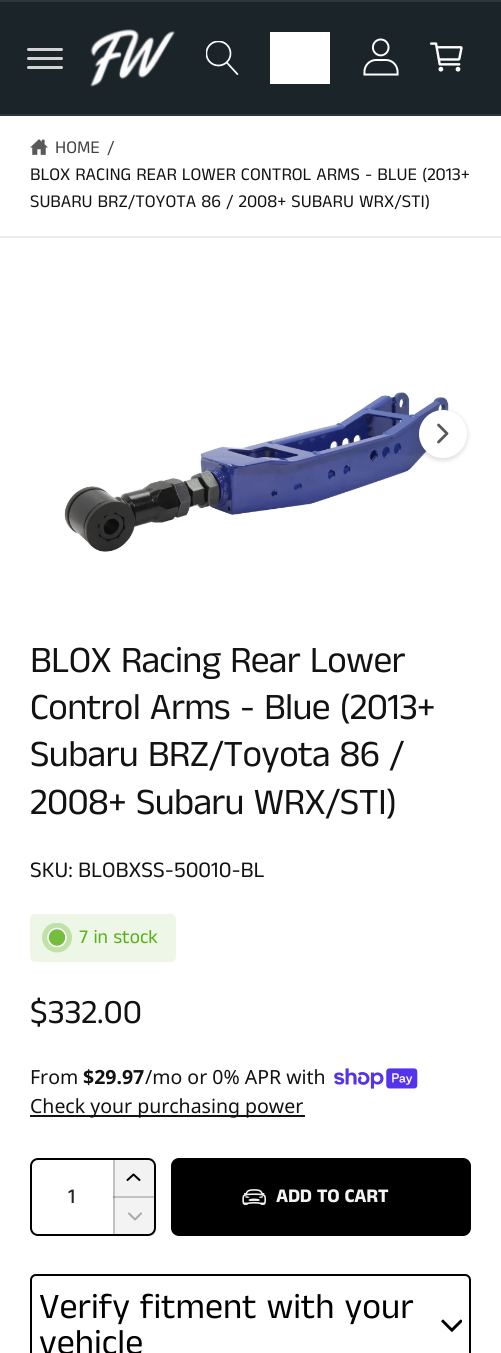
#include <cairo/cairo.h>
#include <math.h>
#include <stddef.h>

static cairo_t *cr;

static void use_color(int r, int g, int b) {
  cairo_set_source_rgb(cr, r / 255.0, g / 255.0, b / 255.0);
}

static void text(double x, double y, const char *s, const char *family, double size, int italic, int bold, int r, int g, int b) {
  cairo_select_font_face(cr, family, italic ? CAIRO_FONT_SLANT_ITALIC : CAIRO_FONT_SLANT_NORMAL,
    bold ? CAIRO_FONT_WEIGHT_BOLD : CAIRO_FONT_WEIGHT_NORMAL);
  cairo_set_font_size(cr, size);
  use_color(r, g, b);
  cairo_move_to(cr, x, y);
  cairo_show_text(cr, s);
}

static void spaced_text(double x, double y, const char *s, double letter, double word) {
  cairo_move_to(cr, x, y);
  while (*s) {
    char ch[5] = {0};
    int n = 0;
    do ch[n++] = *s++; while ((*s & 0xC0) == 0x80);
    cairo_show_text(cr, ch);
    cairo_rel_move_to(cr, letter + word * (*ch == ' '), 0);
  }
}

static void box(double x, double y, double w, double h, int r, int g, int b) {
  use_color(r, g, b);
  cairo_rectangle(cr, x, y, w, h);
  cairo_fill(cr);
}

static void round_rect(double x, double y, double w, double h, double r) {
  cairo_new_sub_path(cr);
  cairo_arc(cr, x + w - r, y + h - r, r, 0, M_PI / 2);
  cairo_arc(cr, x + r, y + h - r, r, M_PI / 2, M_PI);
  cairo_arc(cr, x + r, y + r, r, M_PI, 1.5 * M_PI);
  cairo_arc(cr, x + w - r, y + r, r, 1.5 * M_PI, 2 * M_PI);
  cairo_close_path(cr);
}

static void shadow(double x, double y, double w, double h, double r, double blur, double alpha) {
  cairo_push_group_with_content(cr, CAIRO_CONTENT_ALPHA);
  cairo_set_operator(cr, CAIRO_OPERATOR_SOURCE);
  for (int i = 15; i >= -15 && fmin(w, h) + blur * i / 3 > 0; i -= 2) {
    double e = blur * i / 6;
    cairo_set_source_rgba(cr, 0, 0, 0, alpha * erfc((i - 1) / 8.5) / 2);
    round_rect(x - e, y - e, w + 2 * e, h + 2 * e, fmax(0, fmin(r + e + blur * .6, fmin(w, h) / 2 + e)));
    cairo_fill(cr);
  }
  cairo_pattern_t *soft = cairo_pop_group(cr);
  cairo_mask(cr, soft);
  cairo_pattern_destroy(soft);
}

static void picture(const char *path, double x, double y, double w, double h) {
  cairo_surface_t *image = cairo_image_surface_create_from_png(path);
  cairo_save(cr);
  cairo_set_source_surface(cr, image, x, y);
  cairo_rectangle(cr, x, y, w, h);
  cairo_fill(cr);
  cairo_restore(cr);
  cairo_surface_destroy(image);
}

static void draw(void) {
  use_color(255, 255, 255);
  cairo_paint(cr);
  box(0, 2, 501, 112, 27, 37, 41);
  box(0, 0, 501, 2, 45, 54, 58);
  box(0, 114, 501, 2, 45, 54, 58);
  cairo_new_path(cr);
  cairo_move_to(cr, 28.5, 49.5);
  cairo_line_to(cr, 61.5, 49.5);
  cairo_move_to(cr, 28.5, 58.5);
  cairo_line_to(cr, 61.5, 58.5);
  cairo_move_to(cr, 28.5, 67.5);
  cairo_line_to(cr, 61.5, 67.5);
  use_color(209, 211, 212);
  cairo_set_line_width(cr, 3);
  cairo_set_line_cap(cr, CAIRO_LINE_CAP_ROUND);
  cairo_stroke(cr);
  picture("img_01.png", 90, 29, 86, 58);
  picture("img_02.png", 206, 41, 33, 34);
  box(270, 32, 60, 52, 255, 255, 255);
  picture("img_03.png", 363, 38, 36, 38);
  picture("img_04.png", 430, 42, 33, 30);
  box(0, 236, 501, 2, 236, 236, 236);
  picture("img_05.png", 30, 139, 18, 16);
  box(113, 1197, 42, 1, 204, 204, 204);
  picture("img_06.png", 64, 392, 385, 160);
  use_color(60, 64, 67);
  shadow(417, 410, 51, 51, 25.5, 2, 0.15);
  use_color(255, 255, 255);
  cairo_arc(cr, 443, 434, 24, 0, 2 * M_PI);
  cairo_fill(cr);
  cairo_new_path(cr);
  cairo_move_to(cr, 438.5, 442);
  cairo_line_to(cr, 447, 433.5);
  cairo_line_to(cr, 438.5, 425);
  use_color(86, 88, 91);
  cairo_set_line_width(cr, 2.8);
  cairo_set_line_join(cr, CAIRO_LINE_JOIN_ROUND);
  cairo_stroke(cr);
  use_color(238, 247, 231);
  round_rect(30, 914, 146, 48, 5);
  cairo_fill(cr);
  cairo_save(cr);
  cairo_rectangle(cr, 42, 923, 30, 30);
  cairo_clip(cr);
  use_color(192, 225, 167);
  cairo_arc(cr, 57, 937.5, 15, 0, 2 * M_PI);
  cairo_fill(cr);
  cairo_restore(cr);
  use_color(117, 190, 61);
  cairo_arc(cr, 57, 937.5, 9, 0, 2 * M_PI);
  cairo_fill_preserve(cr);
  use_color(255, 255, 255);
  cairo_set_line_width(cr, 1.5);
  cairo_set_line_cap(cr, CAIRO_LINE_CAP_BUTT);
  cairo_set_line_join(cr, CAIRO_LINE_JOIN_MITER);
  cairo_stroke(cr);
  picture("img_07.png", 334, 1068, 84, 21);
  box(30, 1115, 275, 2, 18, 18, 18);
  use_color(242, 242, 242);
  cairo_new_path(cr);
  cairo_move_to(cr, 113, 1158);
  cairo_line_to(cr, 149, 1158);
  cairo_curve_to(cr, 152.5, 1158, 155, 1160.5, 155, 1164);
  cairo_line_to(cr, 155, 1197);
  cairo_line_to(cr, 113, 1197);
  cairo_close_path(cr);
  cairo_fill(cr);
  box(113, 1158, 2, 39, 194, 194, 194);
  box(113, 1196, 42, 1, 194, 194, 194);
  box(113, 1196, 2, 1, 155, 155, 155);
  cairo_new_path(cr);
  cairo_move_to(cr, 139.5, 1180);
  cairo_line_to(cr, 133.5, 1174.5);
  cairo_line_to(cr, 127.5, 1180);
  use_color(0, 0, 0);
  cairo_set_line_width(cr, 2);
  cairo_set_line_cap(cr, CAIRO_LINE_CAP_ROUND);
  cairo_set_line_join(cr, CAIRO_LINE_JOIN_ROUND);
  cairo_stroke(cr);
  cairo_set_source_rgba(cr, 0, 0, 0, 0.05);
  cairo_rectangle(cr, 113, 1197, 42, 39);
  cairo_fill(cr);
  cairo_set_source_rgba(cr, 0, 0, 0, 0.2);
  cairo_rectangle(cr, 113, 1197, 2, 39);
  cairo_fill(cr);
  cairo_new_path(cr);
  cairo_move_to(cr, 129, 1213.5);
  cairo_line_to(cr, 135, 1219.5);
  cairo_line_to(cr, 141, 1213.5);
  use_color(170, 170, 170);
  cairo_stroke(cr);
  round_rect(31, 1159, 124, 76, 7);
  use_color(255, 255, 255);
  cairo_set_line_cap(cr, CAIRO_LINE_CAP_BUTT);
  cairo_set_line_join(cr, CAIRO_LINE_JOIN_MITER);
  cairo_stroke(cr);
  round_rect(31, 1159, 124, 76, 7);
  use_color(0, 0, 0);
  cairo_stroke(cr);
  round_rect(171, 1158, 300, 78, 8);
  cairo_fill(cr);
  picture("img_08.png", 242, 1189, 24, 16);
  round_rect(31, 1275, 439, 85, 5);
  cairo_stroke(cr);
  picture("img_09.png", 441, 1319, 21, 13);
  text(55, 153, "HOME", "Anek Tamil", 18, 0, 0, 65, 65, 65);
  text(107, 153, "/", "Anek Tamil", 18, 0, 0, 65, 65, 65);
  text(30, 180, "BLOX RACING REAR LOWER CONTROL ARMS - BLUE (2013+", "Anek Tamil", 18, 0, 0, 18, 18, 18);
  text(30, 207, "SUBARU BRZ/TOYOTA 86 / 2008+ SUBARU WRX/STI)", "Anek Tamil", 18, 0, 0, 18, 18, 18);
  cairo_set_font_size(cr, 37.5);
  spaced_text(30, 672, "BLOX Racing Rear Lower", -0.7, 0);
  spaced_text(30, 719, "Control Arms - Blue (2013+", -0.7, 0);
  spaced_text(30, 766, "Subaru BRZ/Toyota 86 /", -0.7, 0);
  spaced_text(30, 814, "2008+ Subaru WRX/STI)", -0.7, 0);
  text(30, 877, "SKU:", "Anek Tamil", 22.5, 0, 0, 18, 18, 18);
  text(78, 877, "BLOBXSS-50010-BL", "Anek Tamil", 22.5, 0, 0, 18, 18, 18);
  text(79, 943, "7 in stock", "Anek Tamil", 19.5, 0, 0, 85, 175, 16);
  text(30, 1023, "$332.00", "Anek Tamil", 34, 0, 0, 18, 18, 18);
  text(30, 1084, "From", "Noto Sans", 19.5, 0, 0, 18, 18, 18);
  text(83, 1084, "$29.97", "Noto Sans", 19.5, 0, 1, 18, 18, 18);
  text(145, 1084, "/mo or 0% APR with", "Noto Sans", 19.5, 0, 0, 18, 18, 18);
  text(30, 1113, "Check your purchasing power", "Noto Sans", 19.5, 0, 0, 18, 18, 18);
  text(68, 1203, "1", "Anek Tamil Medium", 21, 0, 0, 38, 38, 38);
  cairo_select_font_face(cr, "Anek Tamil", CAIRO_FONT_SLANT_NORMAL, CAIRO_FONT_WEIGHT_BOLD);
  cairo_set_font_size(cr, 19.5);
  use_color(243, 243, 243);
  spaced_text(276, 1202, "ADD TO CART", -0.25, 0);
  text(39, 1318, "Verify fitment with your", "Anek Tamil", 36, 0, 0, 0, 0, 0);
  text(39, 1354, "vehicle", "Anek Tamil", 36, 0, 0, 0, 0, 0);
}

int main(void) {
  cairo_surface_t *surface = cairo_image_surface_create(CAIRO_FORMAT_RGB24, 501, 1353);
  cr = cairo_create(surface);
  cairo_font_options_t *options = cairo_font_options_create();
  cairo_font_options_set_hint_metrics(options, CAIRO_HINT_METRICS_OFF);
  cairo_font_options_set_hint_style(options, CAIRO_HINT_STYLE_NONE);
  cairo_set_font_options(cr, options);
  cairo_set_miter_limit(cr, 4);
  draw();
  cairo_surface_write_to_png(surface, "out.png");
  cairo_font_options_destroy(options);
  cairo_destroy(cr);
  cairo_surface_destroy(surface);
  return 0;
}
